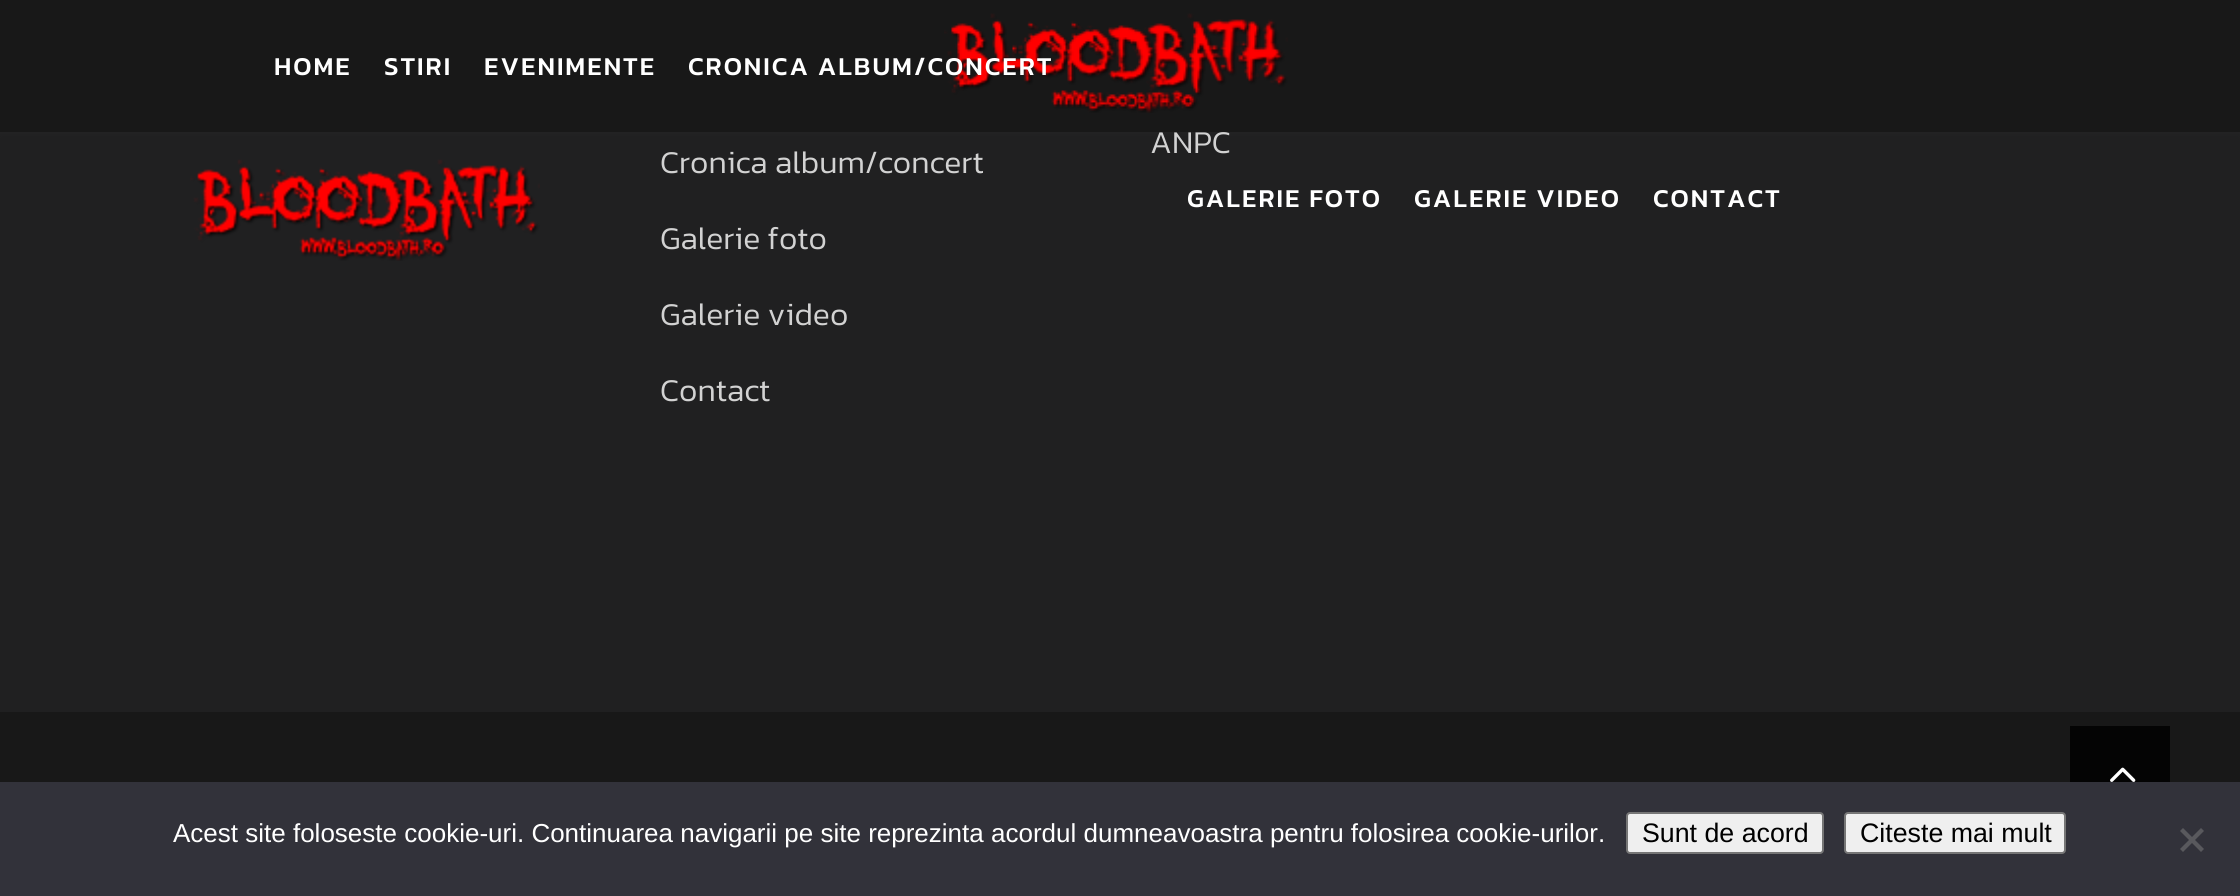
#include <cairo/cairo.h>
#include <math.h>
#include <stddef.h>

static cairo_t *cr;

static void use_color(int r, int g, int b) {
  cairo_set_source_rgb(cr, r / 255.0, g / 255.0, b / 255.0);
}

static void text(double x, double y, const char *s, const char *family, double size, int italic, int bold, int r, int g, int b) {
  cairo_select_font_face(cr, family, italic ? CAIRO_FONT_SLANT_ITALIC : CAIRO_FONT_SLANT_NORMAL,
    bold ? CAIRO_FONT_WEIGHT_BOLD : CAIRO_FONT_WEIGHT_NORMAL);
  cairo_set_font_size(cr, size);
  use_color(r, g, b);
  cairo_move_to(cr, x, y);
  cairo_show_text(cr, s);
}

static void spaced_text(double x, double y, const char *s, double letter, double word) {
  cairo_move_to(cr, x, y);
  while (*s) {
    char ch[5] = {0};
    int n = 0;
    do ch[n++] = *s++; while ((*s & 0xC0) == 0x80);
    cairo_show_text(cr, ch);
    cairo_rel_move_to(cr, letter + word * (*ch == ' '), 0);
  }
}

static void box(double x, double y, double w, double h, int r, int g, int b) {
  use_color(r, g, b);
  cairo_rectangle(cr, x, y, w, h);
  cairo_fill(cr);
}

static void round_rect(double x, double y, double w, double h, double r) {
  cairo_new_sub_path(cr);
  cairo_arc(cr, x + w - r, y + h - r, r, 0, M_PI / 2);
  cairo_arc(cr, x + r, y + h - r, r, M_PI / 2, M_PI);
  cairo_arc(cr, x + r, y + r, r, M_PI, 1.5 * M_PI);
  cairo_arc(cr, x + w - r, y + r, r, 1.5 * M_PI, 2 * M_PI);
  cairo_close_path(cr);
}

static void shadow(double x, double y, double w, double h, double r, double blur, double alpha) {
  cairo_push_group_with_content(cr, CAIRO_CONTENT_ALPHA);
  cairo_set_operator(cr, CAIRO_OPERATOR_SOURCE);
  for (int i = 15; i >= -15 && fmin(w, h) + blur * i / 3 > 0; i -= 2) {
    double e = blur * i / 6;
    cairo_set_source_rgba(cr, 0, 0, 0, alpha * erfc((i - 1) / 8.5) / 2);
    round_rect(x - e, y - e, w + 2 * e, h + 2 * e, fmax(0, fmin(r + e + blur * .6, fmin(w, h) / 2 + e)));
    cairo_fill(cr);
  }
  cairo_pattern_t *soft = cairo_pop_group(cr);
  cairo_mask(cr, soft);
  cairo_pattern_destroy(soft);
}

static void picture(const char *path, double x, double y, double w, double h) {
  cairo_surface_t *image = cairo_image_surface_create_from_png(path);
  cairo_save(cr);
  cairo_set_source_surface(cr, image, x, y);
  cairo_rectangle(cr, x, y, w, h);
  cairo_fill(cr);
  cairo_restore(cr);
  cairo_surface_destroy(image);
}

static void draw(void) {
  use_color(24, 24, 24);
  cairo_paint(cr);
  box(0, 132, 2240, 580, 32, 32, 33);
  use_color(57, 57, 57);
  shadow(0, 0, 2240, 132, 0, 4, 0.2);
  box(0, 0, 2240, 132, 24, 24, 24);
  picture("img_01.png", 944, 13, 344, 100);
  picture("img_02.png", 190, 159, 350, 102);
  box(2070, 726, 100, 56, 4, 4, 4);
  picture("img_03.png", 2110, 767, 26, 15);
  box(0, 782, 2240, 114, 50, 50, 58);
  use_color(239, 239, 239);
  round_rect(1627, 813, 196, 40, 3);
  cairo_fill_preserve(cr);
  use_color(118, 118, 118);
  cairo_stroke(cr);
  use_color(239, 239, 239);
  round_rect(1845, 813, 220, 40, 3);
  cairo_fill_preserve(cr);
  use_color(118, 118, 118);
  cairo_stroke(cr);
  use_color(89, 89, 93);
  cairo_new_path(cr);
  cairo_move_to(cr, 2201, 828);
  cairo_line_to(cr, 2204, 831);
  cairo_line_to(cr, 2183, 852);
  cairo_line_to(cr, 2180, 849);
  cairo_close_path(cr);
  cairo_fill(cr);
  cairo_new_path(cr);
  cairo_move_to(cr, 2180, 831);
  cairo_line_to(cr, 2183, 828);
  cairo_line_to(cr, 2204, 849);
  cairo_line_to(cr, 2201, 852);
  cairo_close_path(cr);
  cairo_fill(cr);
  cairo_select_font_face(cr, "Kanit Medium", CAIRO_FONT_SLANT_NORMAL, CAIRO_FONT_WEIGHT_NORMAL);
  cairo_set_font_size(cr, 26);
  use_color(255, 255, 255);
  spaced_text(274, 75, "HOME", 2, 0);
  spaced_text(384, 75, "STIRI", 2, 0);
  spaced_text(484, 75, "EVENIMENTE", 2, 0);
  spaced_text(688, 75, "CRONICA ALBUM/CONCERT", 2, 0);
  spaced_text(1187, 207, "GALERIE FOTO", 2, 0);
  spaced_text(1414, 207, "GALERIE VIDEO", 2, 0);
  spaced_text(1653, 207, "CONTACT", 2, 0);
  text(1150, 153, "ANPC", "Kanit Light", 32, 0, 0, 210, 210, 210);
  text(660, 173, "Cronica album/concert", "Kanit Light", 32, 0, 0, 210, 210, 210);
  text(660, 249, "Galerie foto", "Kanit Light", 32, 0, 0, 210, 210, 210);
  text(660, 325, "Galerie video", "Kanit Light", 32, 0, 0, 210, 210, 210);
  text(660, 401, "Contact", "Kanit Light", 32, 0, 0, 210, 210, 210);
  text(173, 842, "Acest site foloseste cookie-uri. Continuarea navigarii pe site reprezinta acordul dumneavoastra pentru folosirea cookie-urilor.", "Liberation Sans", 26, 0, 0, 255, 255, 255);
  text(1642, 842, "Sunt de acord", "Liberation Sans", 26.75, 0, 0, 0, 0, 0);
  text(1860, 842, "Citeste mai mult", "Liberation Sans", 26.75, 0, 0, 0, 0, 0);
}

int main(void) {
  cairo_surface_t *surface = cairo_image_surface_create(CAIRO_FORMAT_RGB24, 2240, 896);
  cr = cairo_create(surface);
  cairo_font_options_t *options = cairo_font_options_create();
  cairo_font_options_set_hint_metrics(options, CAIRO_HINT_METRICS_OFF);
  cairo_font_options_set_hint_style(options, CAIRO_HINT_STYLE_NONE);
  cairo_set_font_options(cr, options);
  cairo_set_miter_limit(cr, 4);
  draw();
  cairo_surface_write_to_png(surface, "out.png");
  cairo_font_options_destroy(options);
  cairo_destroy(cr);
  cairo_surface_destroy(surface);
  return 0;
}
